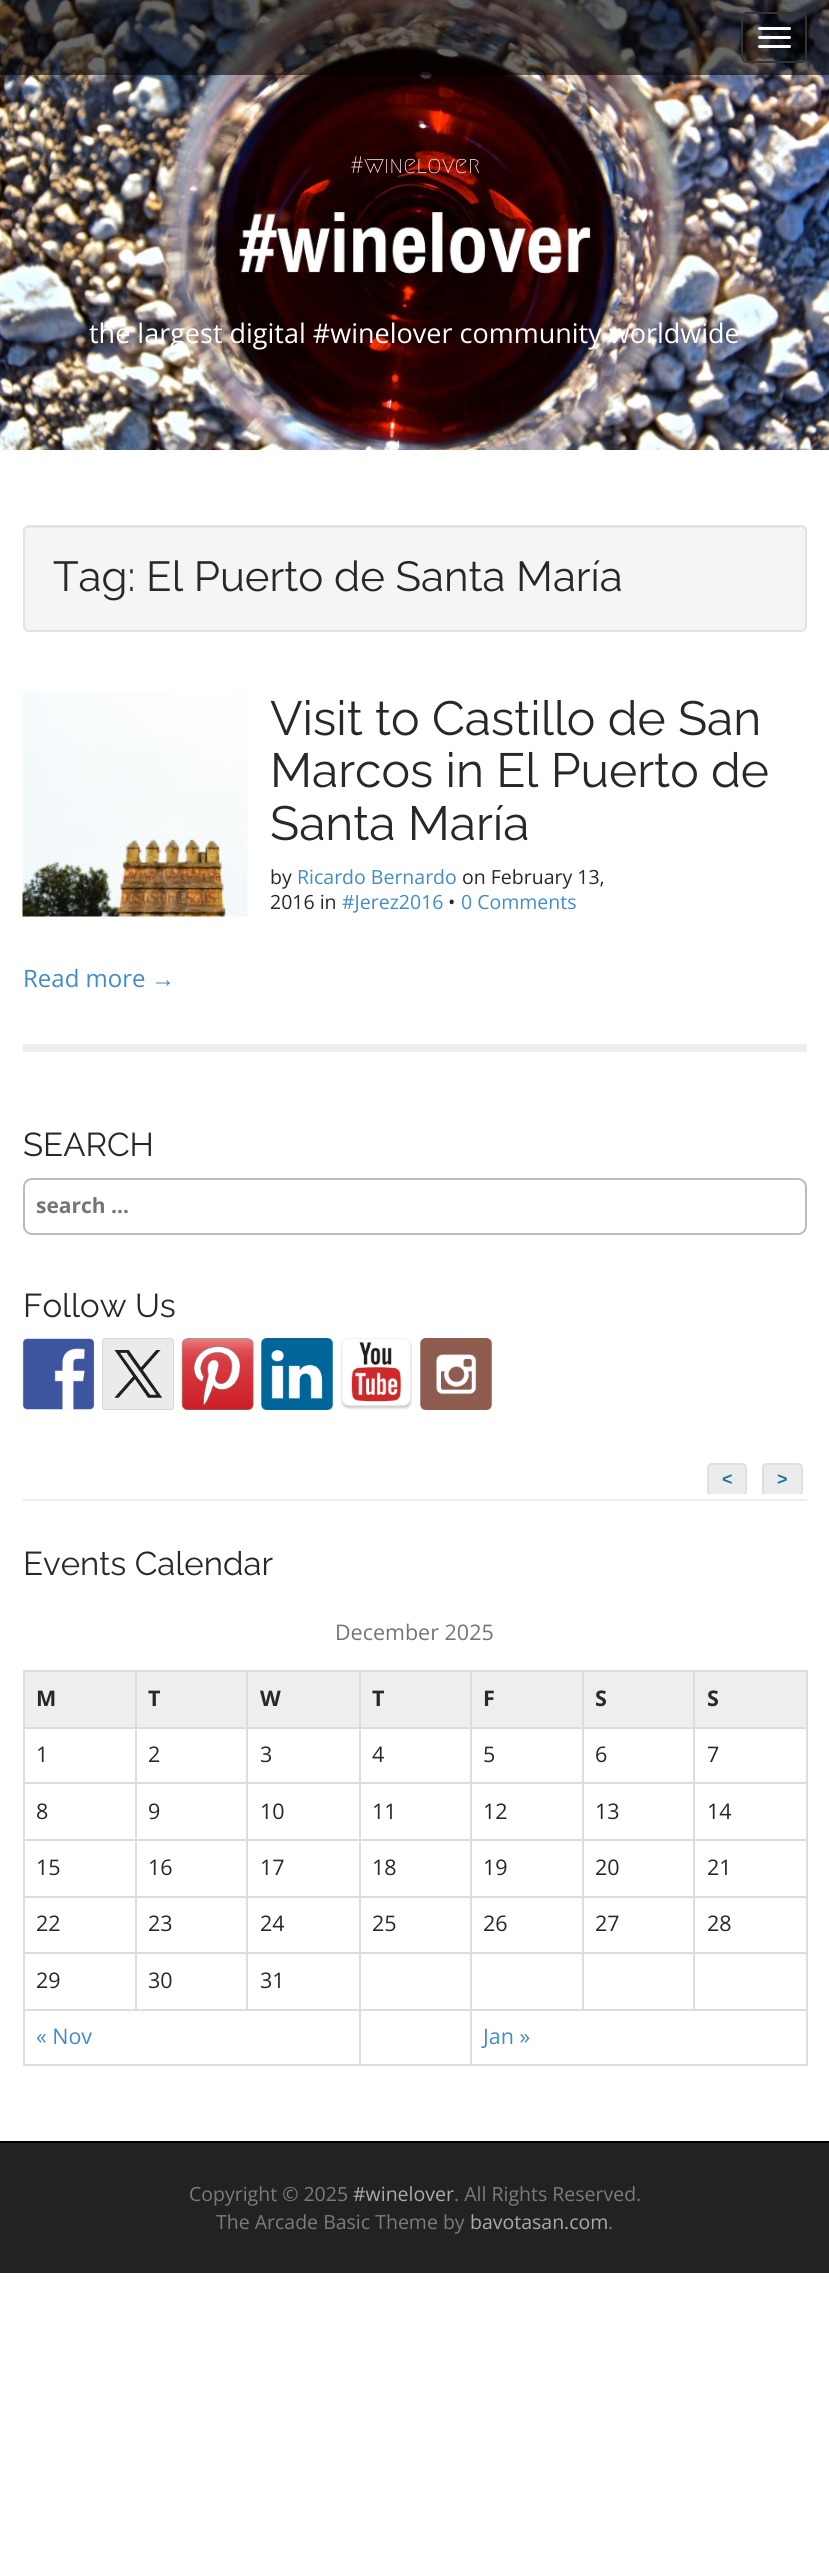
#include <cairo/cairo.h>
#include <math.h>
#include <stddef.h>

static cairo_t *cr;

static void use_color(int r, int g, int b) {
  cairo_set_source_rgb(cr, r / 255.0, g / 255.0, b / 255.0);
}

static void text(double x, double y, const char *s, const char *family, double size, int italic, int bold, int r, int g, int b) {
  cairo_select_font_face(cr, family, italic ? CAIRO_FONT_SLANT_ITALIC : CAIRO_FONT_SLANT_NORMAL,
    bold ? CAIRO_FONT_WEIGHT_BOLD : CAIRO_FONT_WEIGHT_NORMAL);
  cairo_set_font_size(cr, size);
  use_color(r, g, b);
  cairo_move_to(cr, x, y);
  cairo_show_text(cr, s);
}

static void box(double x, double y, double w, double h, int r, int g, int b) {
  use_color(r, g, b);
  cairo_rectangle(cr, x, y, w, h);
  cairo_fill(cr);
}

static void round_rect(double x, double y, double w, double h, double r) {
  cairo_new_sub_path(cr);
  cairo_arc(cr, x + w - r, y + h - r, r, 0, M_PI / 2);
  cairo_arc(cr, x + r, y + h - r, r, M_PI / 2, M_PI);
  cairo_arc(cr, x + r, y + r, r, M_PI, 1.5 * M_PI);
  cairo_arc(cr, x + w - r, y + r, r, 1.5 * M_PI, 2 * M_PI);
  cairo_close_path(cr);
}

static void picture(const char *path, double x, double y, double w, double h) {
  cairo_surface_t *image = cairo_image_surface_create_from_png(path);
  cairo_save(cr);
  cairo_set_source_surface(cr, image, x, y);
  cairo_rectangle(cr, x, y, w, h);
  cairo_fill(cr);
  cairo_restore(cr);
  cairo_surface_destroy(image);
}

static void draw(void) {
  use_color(255, 255, 255);
  cairo_paint(cr);
  picture("img_01.png", 0, 0, 829, 450);
  cairo_set_source_rgba(cr, 0, 0, 0, 0.6);
  cairo_rectangle(cr, 0, 0, 829, 75);
  cairo_fill(cr);
  round_rect(742, 13, 64, 49, 5);
  use_color(51, 51, 51);
  cairo_stroke(cr);
  use_color(255, 255, 255);
  round_rect(758, 27, 33, 3, 1.5);
  cairo_fill(cr);
  round_rect(758, 36, 33, 3, 1.5);
  cairo_fill(cr);
  round_rect(758, 45, 33, 3, 1.5);
  cairo_fill(cr);
  use_color(245, 245, 245);
  round_rect(23, 525, 784, 107, 6);
  cairo_fill(cr);
  use_color(233, 233, 233);
  cairo_new_path(cr);
  cairo_move_to(cr, 28, 528);
  cairo_line_to(cr, 801, 528);
  cairo_curve_to(cr, 803, 528, 806, 530, 806, 532);
  cairo_curve_to(cr, 806, 529, 804, 527, 801, 527);
  cairo_line_to(cr, 29, 527);
  cairo_curve_to(cr, 26, 527, 24, 529, 24, 532);
  cairo_curve_to(cr, 24, 530, 26, 528, 28, 528);
  cairo_close_path(cr);
  cairo_fill(cr);
  round_rect(24, 526, 782, 105, 5);
  use_color(227, 227, 227);
  cairo_stroke(cr);
  box(23, 1044, 784, 8, 238, 238, 238);
  picture("img_02.png", 22, 691, 226, 226);
  round_rect(24, 1179, 782, 55, 8);
  use_color(187, 187, 187);
  cairo_stroke(cr);
  picture("img_03.png", 22, 1338, 73, 72);
  picture("img_04.png", 102, 1338, 72, 72);
  picture("img_05.png", 181, 1338, 73, 72);
  picture("img_06.png", 261, 1338, 72, 72);
  picture("img_07.png", 341, 1338, 71, 72);
  picture("img_08.png", 420, 1338, 72, 72);
  cairo_save(cr);
  cairo_rectangle(cr, 23, 1463, 784, 31);
  cairo_clip(cr);
  use_color(236, 236, 236);
  round_rect(708, 1464, 38, 31, 4);
  cairo_fill_preserve(cr);
  use_color(223, 223, 223);
  cairo_stroke(cr);
  use_color(236, 236, 236);
  round_rect(763, 1464, 39, 31, 4);
  cairo_fill_preserve(cr);
  use_color(223, 223, 223);
  cairo_stroke(cr);
  cairo_restore(cr);
  box(23, 1499, 784, 2, 236, 236, 236);
  box(25, 1672, 110, 55, 238, 238, 238);
  box(693, 1670, 114, 2, 221, 221, 221);
  box(693, 1727, 114, 2, 221, 221, 221);
  box(693, 1782, 114, 2, 221, 221, 221);
  box(693, 1839, 114, 2, 221, 221, 221);
  box(693, 1896, 114, 2, 221, 221, 221);
  box(693, 1952, 114, 2, 221, 221, 221);
  box(470, 2009, 337, 2, 221, 221, 221);
  box(693, 1952, 2, 58, 221, 221, 221);
  box(582, 1952, 113, 2, 221, 221, 221);
  box(693, 1896, 2, 57, 221, 221, 221);
  box(582, 1896, 113, 2, 221, 221, 221);
  box(693, 1839, 2, 59, 221, 221, 221);
  box(582, 1839, 113, 2, 221, 221, 221);
  box(693, 1782, 2, 59, 221, 221, 221);
  box(582, 1782, 113, 2, 221, 221, 221);
  box(693, 1727, 2, 57, 221, 221, 221);
  box(582, 1727, 113, 2, 221, 221, 221);
  box(693, 1670, 2, 58, 221, 221, 221);
  box(582, 1670, 113, 2, 221, 221, 221);
  box(582, 1952, 2, 58, 221, 221, 221);
  box(470, 1952, 114, 2, 221, 221, 221);
  box(582, 1896, 2, 57, 221, 221, 221);
  box(470, 1896, 114, 2, 221, 221, 221);
  box(582, 1839, 2, 59, 221, 221, 221);
  box(470, 1839, 114, 2, 221, 221, 221);
  box(582, 1782, 2, 59, 221, 221, 221);
  box(470, 1782, 114, 2, 221, 221, 221);
  box(582, 1727, 2, 57, 221, 221, 221);
  box(470, 1727, 114, 2, 221, 221, 221);
  box(582, 1670, 2, 58, 221, 221, 221);
  box(470, 1670, 114, 2, 221, 221, 221);
  box(806, 2009, 2, 57, 221, 221, 221);
  box(470, 2064, 337, 2, 221, 221, 221);
  box(470, 2009, 2, 57, 221, 221, 221);
  box(359, 2009, 112, 2, 221, 221, 221);
  box(470, 1952, 2, 58, 221, 221, 221);
  box(359, 1952, 112, 2, 221, 221, 221);
  box(470, 1896, 2, 57, 221, 221, 221);
  box(359, 1896, 112, 2, 221, 221, 221);
  box(470, 1839, 2, 59, 221, 221, 221);
  box(359, 1839, 112, 2, 221, 221, 221);
  box(470, 1782, 2, 59, 221, 221, 221);
  box(359, 1782, 112, 2, 221, 221, 221);
  box(470, 1727, 2, 57, 221, 221, 221);
  box(359, 1727, 112, 2, 221, 221, 221);
  box(470, 1670, 2, 58, 221, 221, 221);
  box(359, 1670, 112, 2, 221, 221, 221);
  box(359, 2064, 112, 2, 221, 221, 221);
  box(359, 2009, 2, 57, 221, 221, 221);
  box(23, 2009, 337, 2, 221, 221, 221);
  box(359, 1952, 2, 58, 221, 221, 221);
  box(246, 1952, 114, 2, 221, 221, 221);
  box(359, 1896, 2, 57, 221, 221, 221);
  box(246, 1896, 114, 2, 221, 221, 221);
  box(359, 1839, 2, 59, 221, 221, 221);
  box(246, 1839, 114, 2, 221, 221, 221);
  box(359, 1782, 2, 59, 221, 221, 221);
  box(246, 1782, 114, 2, 221, 221, 221);
  box(359, 1727, 2, 57, 221, 221, 221);
  box(246, 1727, 114, 2, 221, 221, 221);
  box(359, 1670, 2, 58, 221, 221, 221);
  box(246, 1670, 114, 2, 221, 221, 221);
  box(246, 1952, 2, 58, 221, 221, 221);
  box(135, 1952, 113, 2, 221, 221, 221);
  box(246, 1896, 2, 57, 221, 221, 221);
  box(135, 1896, 113, 2, 221, 221, 221);
  box(246, 1839, 2, 59, 221, 221, 221);
  box(135, 1839, 113, 2, 221, 221, 221);
  box(246, 1782, 2, 59, 221, 221, 221);
  box(135, 1782, 113, 2, 221, 221, 221);
  box(246, 1727, 2, 57, 221, 221, 221);
  box(135, 1727, 113, 2, 221, 221, 221);
  box(246, 1670, 2, 58, 221, 221, 221);
  box(135, 1670, 113, 2, 221, 221, 221);
  box(135, 1952, 2, 58, 221, 221, 221);
  box(23, 1952, 114, 2, 221, 221, 221);
  box(135, 1896, 2, 57, 221, 221, 221);
  box(23, 1896, 114, 2, 221, 221, 221);
  box(135, 1839, 2, 59, 221, 221, 221);
  box(23, 1839, 114, 2, 221, 221, 221);
  box(135, 1782, 2, 59, 221, 221, 221);
  box(23, 1782, 114, 2, 221, 221, 221);
  box(135, 1727, 2, 57, 221, 221, 221);
  box(23, 1727, 114, 2, 221, 221, 221);
  box(135, 1670, 2, 58, 221, 221, 221);
  box(23, 1670, 114, 2, 221, 221, 221);
  box(23, 2064, 337, 2, 221, 221, 221);
  box(23, 2009, 2, 57, 221, 221, 221);
  box(23, 1952, 2, 58, 221, 221, 221);
  box(23, 1896, 2, 57, 221, 221, 221);
  box(23, 1839, 2, 59, 221, 221, 221);
  box(23, 1782, 2, 59, 221, 221, 221);
  box(23, 1727, 2, 57, 221, 221, 221);
  box(23, 1670, 2, 58, 221, 221, 221);
  box(137, 1672, 109, 55, 238, 238, 238);
  box(248, 1672, 111, 55, 238, 238, 238);
  box(361, 1672, 109, 55, 238, 238, 238);
  box(472, 1672, 110, 55, 238, 238, 238);
  box(584, 1672, 109, 55, 238, 238, 238);
  box(695, 1672, 111, 55, 238, 238, 238);
  box(806, 1952, 2, 58, 221, 221, 221);
  box(806, 1896, 2, 57, 221, 221, 221);
  box(806, 1839, 2, 59, 221, 221, 221);
  box(806, 1782, 2, 59, 221, 221, 221);
  box(806, 1727, 2, 57, 221, 221, 221);
  box(806, 1670, 2, 58, 221, 221, 221);
  box(0, 2143, 829, 130, 34, 34, 34);
  box(0, 2141, 829, 2, 0, 0, 0);
  text(350, 173, "#winelover", "Megrim Medium", 24, 0, 0, 255, 255, 255);
  text(89, 343, "the largest digital #winelover community worldwide", "Open Sans", 27, 0, 0, 255, 255, 255);
  text(53, 591, "Tag: El Puerto de Santa María", "Raleway Thin", 42, 0, 0, 40, 40, 40);
  text(270, 735, "Visit to Castillo de San", "Raleway Thin", 48, 0, 0, 40, 40, 40);
  text(270, 787, "Marcos in El Puerto de", "Raleway Thin", 48, 0, 0, 40, 40, 40);
  text(270, 840, "Santa María", "Raleway Thin", 48, 0, 0, 40, 40, 40);
  text(270, 884, "by", "Open Sans", 19.5, 0, 0, 40, 40, 40);
  text(297, 884, "Ricardo Bernardo", "Open Sans", 19.5, 0, 0, 66, 139, 202);
  text(462, 884, "on February 13,", "Open Sans", 19.5, 0, 0, 40, 40, 40);
  text(270, 909, "2016 in", "Open Sans", 19.5, 0, 0, 40, 40, 40);
  text(342, 909, "#Jerez2016", "Open Sans", 19.5, 0, 0, 66, 139, 202);
  text(448, 909, "•", "Open Sans", 19.5, 0, 0, 40, 40, 40);
  text(461, 909, "0 Comments", "Open Sans", 19.5, 0, 0, 66, 139, 202);
  text(23, 987, "Read more", "Open Sans", 24, 0, 0, 66, 139, 202);
  text(151, 987, "→", "Liberation Sans", 24, 0, 0, 66, 139, 202);
  text(23, 1156, "SEARCH", "Raleway Thin", 33, 0, 0, 40, 40, 40);
  text(36, 1213, "search …", "Open Sans", 21, 0, 1, 117, 117, 117);
  text(23, 1317, "Follow Us", "Raleway Thin", 33, 0, 0, 40, 40, 40);
  text(722, 1485, "<", "Liberation Sans", 18, 0, 1, 33, 117, 155);
  text(777, 1485, ">", "Liberation Sans", 18, 0, 1, 33, 117, 155);
  text(23, 1575, "Events Calendar", "Raleway Thin", 33, 0, 0, 40, 40, 40);
  text(335, 1640, "December 2025", "Open Sans", 21.5, 0, 0, 117, 117, 117);
  text(36, 1706, "M", "Open Sans", 21.5, 0, 1, 40, 40, 40);
  text(148, 1706, "T", "Open Sans", 21.5, 0, 1, 40, 40, 40);
  text(260, 1706, "W", "Open Sans", 21.5, 0, 1, 40, 40, 40);
  text(372, 1706, "T", "Open Sans", 21.5, 0, 1, 40, 40, 40);
  text(483, 1706, "F", "Open Sans", 21.5, 0, 1, 40, 40, 40);
  text(595, 1706, "S", "Open Sans", 21.5, 0, 1, 40, 40, 40);
  text(707, 1706, "S", "Open Sans", 21.5, 0, 1, 40, 40, 40);
  text(36, 1762, "1", "Open Sans", 21.5, 0, 0, 40, 40, 40);
  text(148, 1762, "2", "Open Sans", 21.5, 0, 0, 40, 40, 40);
  text(260, 1762, "3", "Open Sans", 21.5, 0, 0, 40, 40, 40);
  text(372, 1762, "4", "Open Sans", 21.5, 0, 0, 40, 40, 40);
  text(483, 1762, "5", "Open Sans", 21.5, 0, 0, 40, 40, 40);
  text(595, 1762, "6", "Open Sans", 21.5, 0, 0, 40, 40, 40);
  text(707, 1762, "7", "Open Sans", 21.5, 0, 0, 40, 40, 40);
  text(36, 1819, "8", "Open Sans", 21.5, 0, 0, 40, 40, 40);
  text(148, 1819, "9", "Open Sans", 21.5, 0, 0, 40, 40, 40);
  text(260, 1819, "10", "Open Sans", 21.5, 0, 0, 40, 40, 40);
  text(372, 1819, "11", "Open Sans", 21.5, 0, 0, 40, 40, 40);
  text(483, 1819, "12", "Open Sans", 21.5, 0, 0, 40, 40, 40);
  text(595, 1819, "13", "Open Sans", 21.5, 0, 0, 40, 40, 40);
  text(707, 1819, "14", "Open Sans", 21.5, 0, 0, 40, 40, 40);
  text(36, 1875, "15", "Open Sans", 21.5, 0, 0, 40, 40, 40);
  text(148, 1875, "16", "Open Sans", 21.5, 0, 0, 40, 40, 40);
  text(260, 1875, "17", "Open Sans", 21.5, 0, 0, 40, 40, 40);
  text(372, 1875, "18", "Open Sans", 21.5, 0, 0, 40, 40, 40);
  text(483, 1875, "19", "Open Sans", 21.5, 0, 0, 40, 40, 40);
  text(595, 1875, "20", "Open Sans", 21.5, 0, 0, 40, 40, 40);
  text(707, 1875, "21", "Open Sans", 21.5, 0, 0, 40, 40, 40);
  text(36, 1931, "22", "Open Sans", 21.5, 0, 0, 40, 40, 40);
  text(148, 1931, "23", "Open Sans", 21.5, 0, 0, 40, 40, 40);
  text(260, 1931, "24", "Open Sans", 21.5, 0, 0, 40, 40, 40);
  text(372, 1931, "25", "Open Sans", 21.5, 0, 0, 40, 40, 40);
  text(483, 1931, "26", "Open Sans", 21.5, 0, 0, 40, 40, 40);
  text(595, 1931, "27", "Open Sans", 21.5, 0, 0, 40, 40, 40);
  text(707, 1931, "28", "Open Sans", 21.5, 0, 0, 40, 40, 40);
  text(36, 1988, "29", "Open Sans", 21.5, 0, 0, 40, 40, 40);
  text(148, 1988, "30", "Open Sans", 21.5, 0, 0, 40, 40, 40);
  text(260, 1988, "31", "Open Sans", 21.5, 0, 0, 40, 40, 40);
  text(36, 2044, "« Nov", "Open Sans", 21.5, 0, 0, 66, 139, 202);
  text(483, 2044, "Jan »", "Open Sans", 21.5, 0, 0, 66, 139, 202);
  text(189, 2201, "Copyright © 2025", "Open Sans", 19.5, 0, 0, 123, 123, 123);
  text(353, 2201, "#winelover", "Open Sans", 19.5, 0, 0, 170, 170, 170);
  text(454, 2201, ". All Rights Reserved.", "Open Sans", 19.5, 0, 0, 123, 123, 123);
  text(216, 2229, "The Arcade Basic Theme by", "Open Sans", 19.5, 0, 0, 123, 123, 123);
  text(470, 2229, "bavotasan.com", "Open Sans", 19.5, 0, 0, 170, 170, 170);
  text(608, 2229, ".", "Open Sans", 19.5, 0, 0, 123, 123, 123);
}

int main(void) {
  cairo_surface_t *surface = cairo_image_surface_create(CAIRO_FORMAT_RGB24, 829, 2561);
  cr = cairo_create(surface);
  cairo_font_options_t *options = cairo_font_options_create();
  cairo_font_options_set_hint_metrics(options, CAIRO_HINT_METRICS_OFF);
  cairo_font_options_set_hint_style(options, CAIRO_HINT_STYLE_NONE);
  cairo_set_font_options(cr, options);
  cairo_set_miter_limit(cr, 4);
  draw();
  cairo_surface_write_to_png(surface, "out.png");
  cairo_font_options_destroy(options);
  cairo_destroy(cr);
  cairo_surface_destroy(surface);
  return 0;
}
